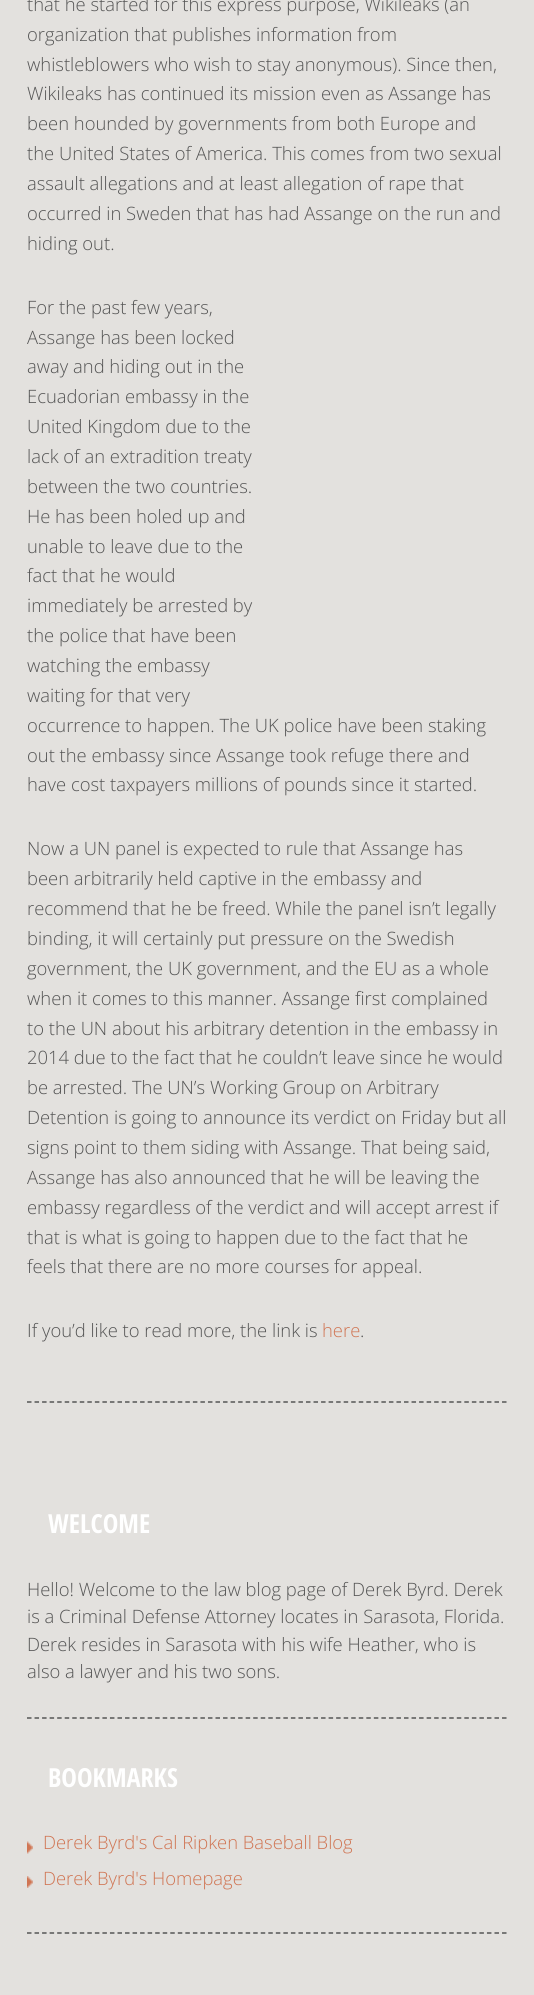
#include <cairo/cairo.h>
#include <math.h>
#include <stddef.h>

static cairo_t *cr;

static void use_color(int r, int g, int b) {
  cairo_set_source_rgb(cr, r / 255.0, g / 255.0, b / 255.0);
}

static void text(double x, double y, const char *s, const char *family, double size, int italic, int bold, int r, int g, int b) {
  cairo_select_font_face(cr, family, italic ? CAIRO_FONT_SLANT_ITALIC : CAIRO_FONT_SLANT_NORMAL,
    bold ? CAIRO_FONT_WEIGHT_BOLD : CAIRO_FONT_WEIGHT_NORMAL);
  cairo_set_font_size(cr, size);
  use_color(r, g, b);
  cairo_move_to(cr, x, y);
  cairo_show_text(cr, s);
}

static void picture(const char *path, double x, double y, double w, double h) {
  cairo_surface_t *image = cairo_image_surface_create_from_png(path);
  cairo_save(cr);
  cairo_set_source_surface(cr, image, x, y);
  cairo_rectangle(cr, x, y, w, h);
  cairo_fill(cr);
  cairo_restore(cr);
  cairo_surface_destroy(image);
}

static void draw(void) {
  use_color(227, 225, 222);
  cairo_paint(cr);
  cairo_new_path(cr);
  cairo_move_to(cr, 27, 1402);
  cairo_line_to(cr, 507, 1402);
  use_color(85, 85, 85);
  cairo_set_line_width(cr, 1.5);
  cairo_set_dash(cr, (double[]){4.5, 3.04}, 2, 0);
  cairo_stroke(cr);
  cairo_new_path(cr);
  cairo_move_to(cr, 27, 1718);
  cairo_line_to(cr, 507, 1718);
  cairo_stroke(cr);
  cairo_new_path(cr);
  cairo_move_to(cr, 27, 1933);
  cairo_line_to(cr, 507, 1933);
  cairo_stroke(cr);
  picture("img_01.png", 27, 1841, 6, 13);
  picture("img_02.png", 27, 1876, 6, 12);
  text(27, 11, "that he started for this express purpose, Wikileaks (an", "Open Sans Light", 18.4, 0, 0, 85, 85, 85);
  text(27, 41, "organization that publishes information from", "Open Sans Light", 18.4, 0, 0, 85, 85, 85);
  text(27, 71, "whistleblowers who wish to stay anonymous). Since then,", "Open Sans Light", 18.4, 0, 0, 85, 85, 85);
  text(27, 100, "Wikileaks has continued its mission even as Assange has", "Open Sans Light", 18.4, 0, 0, 85, 85, 85);
  text(27, 130, "been hounded by governments from both Europe and", "Open Sans Light", 18.4, 0, 0, 85, 85, 85);
  text(27, 160, "the United States of America. This comes from two sexual", "Open Sans Light", 18.4, 0, 0, 85, 85, 85);
  text(27, 190, "assault allegations and at least allegation of rape that", "Open Sans Light", 18.4, 0, 0, 85, 85, 85);
  text(27, 220, "occurred in Sweden that has had Assange on the run and", "Open Sans Light", 18.4, 0, 0, 85, 85, 85);
  text(27, 250, "hiding out.", "Open Sans Light", 18.4, 0, 0, 85, 85, 85);
  text(27, 314, "For the past few years,", "Open Sans Light", 18.4, 0, 0, 85, 85, 85);
  text(27, 344, "Assange has been locked", "Open Sans Light", 18.4, 0, 0, 85, 85, 85);
  text(27, 373, "away and hiding out in the", "Open Sans Light", 18.4, 0, 0, 85, 85, 85);
  text(27, 403, "Ecuadorian embassy in the", "Open Sans Light", 18.4, 0, 0, 85, 85, 85);
  text(27, 433, "United Kingdom due to the", "Open Sans Light", 18.4, 0, 0, 85, 85, 85);
  text(27, 463, "lack of an extradition treaty", "Open Sans Light", 18.4, 0, 0, 85, 85, 85);
  text(27, 493, "between the two countries.", "Open Sans Light", 18.4, 0, 0, 85, 85, 85);
  text(27, 523, "He has been holed up and", "Open Sans Light", 18.4, 0, 0, 85, 85, 85);
  text(27, 553, "unable to leave due to the", "Open Sans Light", 18.4, 0, 0, 85, 85, 85);
  text(27, 582, "fact that he would", "Open Sans Light", 18.4, 0, 0, 85, 85, 85);
  text(27, 612, "immediately be arrested by", "Open Sans Light", 18.4, 0, 0, 85, 85, 85);
  text(27, 642, "the police that have been", "Open Sans Light", 18.4, 0, 0, 85, 85, 85);
  text(27, 672, "watching the embassy", "Open Sans Light", 18.4, 0, 0, 85, 85, 85);
  text(27, 702, "waiting for that very", "Open Sans Light", 18.4, 0, 0, 85, 85, 85);
  text(27, 732, "occurrence to happen. The UK police have been staking", "Open Sans Light", 18.4, 0, 0, 85, 85, 85);
  text(27, 762, "out the embassy since Assange took refuge there and", "Open Sans Light", 18.4, 0, 0, 85, 85, 85);
  text(27, 791, "have cost taxpayers millions of pounds since it started.", "Open Sans Light", 18.4, 0, 0, 85, 85, 85);
  text(27, 855, "Now a UN panel is expected to rule that Assange has", "Open Sans Light", 18.4, 0, 0, 85, 85, 85);
  text(27, 885, "been arbitrarily held captive in the embassy and", "Open Sans Light", 18.4, 0, 0, 85, 85, 85);
  text(27, 915, "recommend that he be freed. While the panel isn’t legally", "Open Sans Light", 18.4, 0, 0, 85, 85, 85);
  text(27, 945, "binding, it will certainly put pressure on the Swedish", "Open Sans Light", 18.4, 0, 0, 85, 85, 85);
  text(27, 975, "government, the UK government, and the EU as a whole", "Open Sans Light", 18.4, 0, 0, 85, 85, 85);
  text(27, 1005, "when it comes to this manner. Assange first complained", "Open Sans Light", 18.4, 0, 0, 85, 85, 85);
  text(27, 1035, "to the UN about his arbitrary detention in the embassy in", "Open Sans Light", 18.4, 0, 0, 85, 85, 85);
  text(27, 1064, "2014 due to the fact that he couldn’t leave since he would", "Open Sans Light", 18.4, 0, 0, 85, 85, 85);
  text(27, 1094, "be arrested. The UN’s Working Group on Arbitrary", "Open Sans Light", 18.4, 0, 0, 85, 85, 85);
  text(27, 1124, "Detention is going to announce its verdict on Friday but all", "Open Sans Light", 18.4, 0, 0, 85, 85, 85);
  text(27, 1154, "signs point to them siding with Assange. That being said,", "Open Sans Light", 18.4, 0, 0, 85, 85, 85);
  text(27, 1184, "Assange has also announced that he will be leaving the", "Open Sans Light", 18.4, 0, 0, 85, 85, 85);
  text(27, 1214, "embassy regardless of the verdict and will accept arrest if", "Open Sans Light", 18.4, 0, 0, 85, 85, 85);
  text(27, 1244, "that is what is going to happen due to the fact that he", "Open Sans Light", 18.4, 0, 0, 85, 85, 85);
  text(27, 1273, "feels that there are no more courses for appeal.", "Open Sans Light", 18.4, 0, 0, 85, 85, 85);
  text(27, 1337, "If you’d like to read more, the link is", "Open Sans Light", 18.4, 0, 0, 85, 85, 85);
  text(322, 1337, "here", "Open Sans Light", 18.4, 0, 0, 208, 117, 83);
  text(360, 1337, ".", "Open Sans Light", 18.4, 0, 0, 85, 85, 85);
  text(48, 1533, "WELCOME", "Open Sans Condensed", 26.25, 0, 1, 255, 255, 255);
  text(27, 1596, "Hello! Welcome to the law blog page of Derek Byrd. Derek", "Open Sans Light", 18.4, 0, 0, 85, 85, 85);
  text(27, 1623, "is a Criminal Defense Attorney locates in Sarasota, Florida.", "Open Sans Light", 18.4, 0, 0, 85, 85, 85);
  text(27, 1651, "Derek resides in Sarasota with his wife Heather, who is", "Open Sans Light", 18.4, 0, 0, 85, 85, 85);
  text(27, 1678, "also a lawyer and his two sons.", "Open Sans Light", 18.4, 0, 0, 85, 85, 85);
  text(48, 1787, "BOOKMARKS", "Open Sans Condensed", 26.25, 0, 1, 255, 255, 255);
  text(43, 1849, "Derek Byrd's Cal Ripken Baseball Blog", "Open Sans Light", 18.4, 0, 0, 208, 117, 83);
  text(43, 1885, "Derek Byrd's Homepage", "Open Sans Light", 18.4, 0, 0, 208, 117, 83);
}

int main(void) {
  cairo_surface_t *surface = cairo_image_surface_create(CAIRO_FORMAT_RGB24, 534, 1995);
  cr = cairo_create(surface);
  cairo_font_options_t *options = cairo_font_options_create();
  cairo_font_options_set_hint_metrics(options, CAIRO_HINT_METRICS_OFF);
  cairo_font_options_set_hint_style(options, CAIRO_HINT_STYLE_NONE);
  cairo_set_font_options(cr, options);
  cairo_set_miter_limit(cr, 4);
  draw();
  cairo_surface_write_to_png(surface, "out.png");
  cairo_font_options_destroy(options);
  cairo_destroy(cr);
  cairo_surface_destroy(surface);
  return 0;
}
